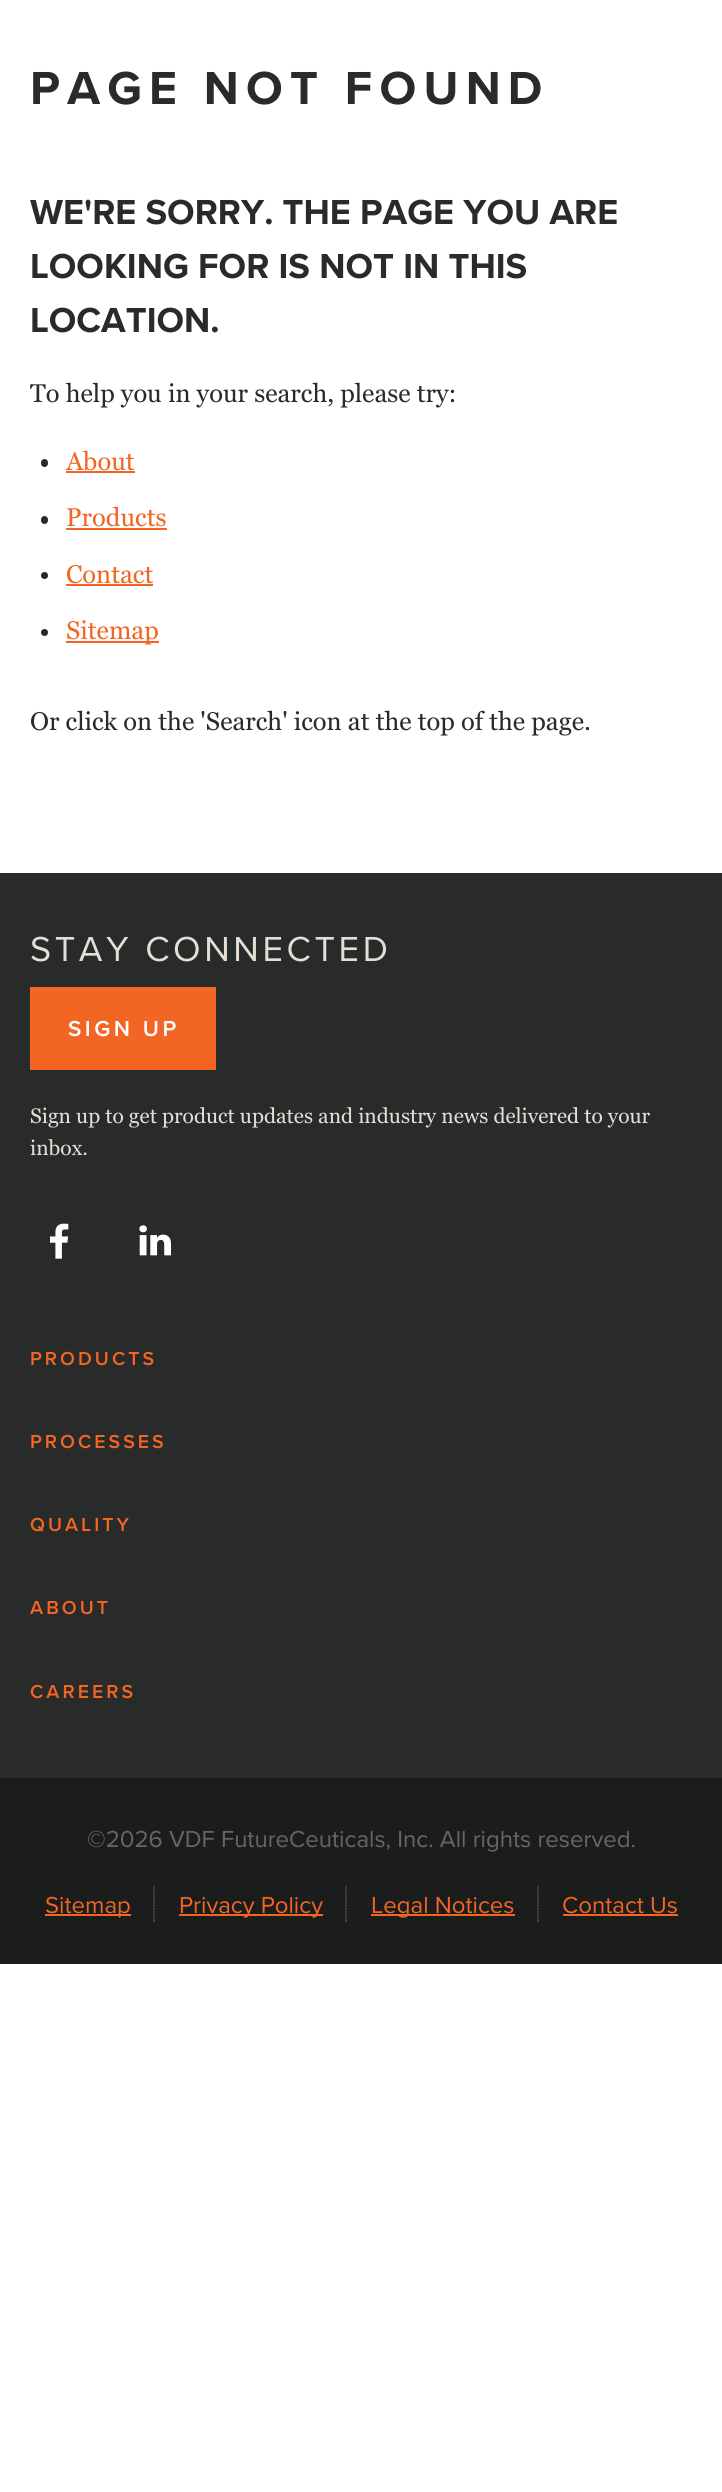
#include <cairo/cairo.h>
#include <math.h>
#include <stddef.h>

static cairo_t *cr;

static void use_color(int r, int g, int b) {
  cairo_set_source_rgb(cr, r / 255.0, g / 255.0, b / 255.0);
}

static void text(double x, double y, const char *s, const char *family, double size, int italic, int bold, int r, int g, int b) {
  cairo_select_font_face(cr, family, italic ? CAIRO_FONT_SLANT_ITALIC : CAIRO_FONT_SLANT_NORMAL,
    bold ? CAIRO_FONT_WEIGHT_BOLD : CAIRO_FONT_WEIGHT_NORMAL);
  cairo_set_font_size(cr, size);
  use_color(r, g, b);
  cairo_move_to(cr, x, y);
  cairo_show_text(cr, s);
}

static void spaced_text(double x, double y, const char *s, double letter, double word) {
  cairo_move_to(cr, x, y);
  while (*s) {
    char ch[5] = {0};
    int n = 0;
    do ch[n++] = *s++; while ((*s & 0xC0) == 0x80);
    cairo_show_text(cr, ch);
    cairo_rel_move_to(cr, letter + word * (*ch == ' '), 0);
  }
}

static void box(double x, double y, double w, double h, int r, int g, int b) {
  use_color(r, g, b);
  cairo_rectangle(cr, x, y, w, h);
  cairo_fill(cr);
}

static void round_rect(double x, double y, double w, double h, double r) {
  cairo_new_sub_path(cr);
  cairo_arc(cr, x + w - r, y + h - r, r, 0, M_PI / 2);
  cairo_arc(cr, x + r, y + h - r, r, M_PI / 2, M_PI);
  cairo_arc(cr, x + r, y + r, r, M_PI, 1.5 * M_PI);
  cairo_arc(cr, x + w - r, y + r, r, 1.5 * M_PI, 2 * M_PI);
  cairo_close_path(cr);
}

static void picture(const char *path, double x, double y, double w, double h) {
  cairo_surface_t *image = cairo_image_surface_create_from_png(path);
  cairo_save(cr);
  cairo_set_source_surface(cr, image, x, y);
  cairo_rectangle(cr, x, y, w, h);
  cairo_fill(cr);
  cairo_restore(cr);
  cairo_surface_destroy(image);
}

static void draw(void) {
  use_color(255, 255, 255);
  cairo_paint(cr);
  use_color(41, 42, 42);
  round_rect(41, 459, 7, 8, 3.5);
  cairo_fill(cr);
  box(66, 471, 69, 2, 242, 101, 34);
  use_color(41, 42, 42);
  round_rect(41, 516, 7, 8, 3.5);
  cairo_fill(cr);
  box(66, 528, 101, 2, 242, 101, 34);
  use_color(41, 42, 42);
  cairo_arc(cr, 44.5, 575.5, 3.5, 0, 2 * M_PI);
  cairo_fill(cr);
  box(66, 584, 87, 2, 242, 101, 34);
  use_color(41, 42, 42);
  cairo_arc(cr, 44.5, 632.5, 3.5, 0, 2 * M_PI);
  cairo_fill(cr);
  box(66, 641, 93, 2, 242, 101, 34);
  box(0, 873, 722, 905, 41, 42, 42);
  box(30, 987, 186, 83, 242, 101, 34);
  picture("img_01.png", 50, 1223, 19, 36);
  picture("img_02.png", 139, 1225, 32, 31);
  box(0, 1778, 722, 186, 27, 29, 29);
  box(45, 1914, 86, 2, 242, 101, 34);
  box(153, 1886, 2, 36, 65, 64, 66);
  cairo_new_path(cr);
  cairo_move_to(cr, 154, 1885.5);
  cairo_line_to(cr, 154, 1921.5);
  use_color(41, 42, 42);
  cairo_set_line_width(cr, 1.5);
  cairo_set_dash(cr, (double[]){1.5, 1.5}, 2, 0);
  cairo_stroke(cr);
  box(179, 1914, 144, 2, 242, 101, 34);
  box(345, 1886, 2, 36, 65, 64, 66);
  cairo_new_path(cr);
  cairo_move_to(cr, 346, 1885.5);
  cairo_line_to(cr, 346, 1921.5);
  use_color(41, 42, 42);
  cairo_stroke(cr);
  box(371, 1914, 144, 2, 242, 101, 34);
  box(537, 1886, 2, 36, 65, 64, 66);
  cairo_new_path(cr);
  cairo_move_to(cr, 538, 1885.5);
  cairo_line_to(cr, 538, 1921.5);
  use_color(41, 42, 42);
  cairo_stroke(cr);
  box(563, 1914, 115, 2, 242, 101, 34);
  cairo_select_font_face(cr, "Proxima Nova", CAIRO_FONT_SLANT_NORMAL, CAIRO_FONT_WEIGHT_BOLD);
  cairo_set_font_size(cr, 48);
  use_color(41, 42, 42);
  spaced_text(30, 104, "PAGE NOT FOUND", 7.25, 0);
  text(30, 224, "WE'RE SORRY. THE PAGE YOU ARE", "Proxima Nova", 36, 0, 1, 41, 42, 42);
  text(30, 278, "LOOKING FOR IS NOT IN THIS", "Proxima Nova", 36, 0, 1, 41, 42, 42);
  text(30, 332, "LOCATION.", "Proxima Nova", 36, 0, 1, 41, 42, 42);
  text(30, 402, "To help you in your search, please try:", "Georgia", 25.5, 0, 0, 41, 42, 42);
  text(66, 470, "About", "Georgia", 25.5, 0, 0, 242, 101, 34);
  text(66, 526, "Products", "Georgia", 25.5, 0, 0, 242, 101, 34);
  text(66, 583, "Contact", "Georgia", 25.5, 0, 0, 242, 101, 34);
  text(66, 639, "Sitemap", "Georgia", 25.5, 0, 0, 242, 101, 34);
  text(30, 730, "Or click on the 'Search' icon at the top of the page.", "Georgia", 25.5, 0, 0, 41, 42, 42);
  cairo_select_font_face(cr, "Proxima Nova", CAIRO_FONT_SLANT_NORMAL, CAIRO_FONT_WEIGHT_NORMAL);
  cairo_set_font_size(cr, 36);
  use_color(229, 222, 213);
  spaced_text(30, 961, "STAY CONNECTED", 3.6, 0);
  cairo_select_font_face(cr, "Proxima Nova SemiBold", CAIRO_FONT_SLANT_NORMAL, CAIRO_FONT_WEIGHT_NORMAL);
  cairo_set_font_size(cr, 22.5);
  use_color(255, 255, 255);
  spaced_text(68, 1036, "SIGN UP", 3.5, 0);
  text(30, 1123, "Sign up to get product updates and industry news delivered to your", "Georgia", 21, 0, 0, 229, 222, 213);
  text(30, 1155, "inbox.", "Georgia", 21, 0, 0, 229, 222, 213);
  cairo_select_font_face(cr, "Proxima Nova SemiBold", CAIRO_FONT_SLANT_NORMAL, CAIRO_FONT_WEIGHT_NORMAL);
  cairo_set_font_size(cr, 19.5);
  use_color(242, 101, 34);
  spaced_text(30, 1365, "PRODUCTS", 3, 0);
  spaced_text(30, 1448, "PROCESSES", 3, 0);
  spaced_text(30, 1531, "QUALITY", 3, 0);
  spaced_text(30, 1614, "ABOUT", 3, 0);
  spaced_text(30, 1698, "CAREERS", 3, 0);
  text(87, 1847, "©2026 VDF FutureCeuticals, Inc. All rights reserved.", "Proxima Nova", 24, 0, 0, 102, 102, 102);
  text(45, 1913, "Sitemap", "Proxima Nova", 24, 0, 0, 242, 101, 34);
  text(179, 1913, "Privacy Policy", "Proxima Nova", 24, 0, 0, 242, 101, 34);
  text(371, 1913, "Legal Notices", "Proxima Nova", 24, 0, 0, 242, 101, 34);
  text(562, 1913, "Contact Us", "Proxima Nova", 24, 0, 0, 242, 101, 34);
}

int main(void) {
  cairo_surface_t *surface = cairo_image_surface_create(CAIRO_FORMAT_RGB24, 722, 2492);
  cr = cairo_create(surface);
  cairo_font_options_t *options = cairo_font_options_create();
  cairo_font_options_set_hint_metrics(options, CAIRO_HINT_METRICS_OFF);
  cairo_font_options_set_hint_style(options, CAIRO_HINT_STYLE_NONE);
  cairo_set_font_options(cr, options);
  cairo_set_miter_limit(cr, 4);
  draw();
  cairo_surface_write_to_png(surface, "out.png");
  cairo_font_options_destroy(options);
  cairo_destroy(cr);
  cairo_surface_destroy(surface);
  return 0;
}
